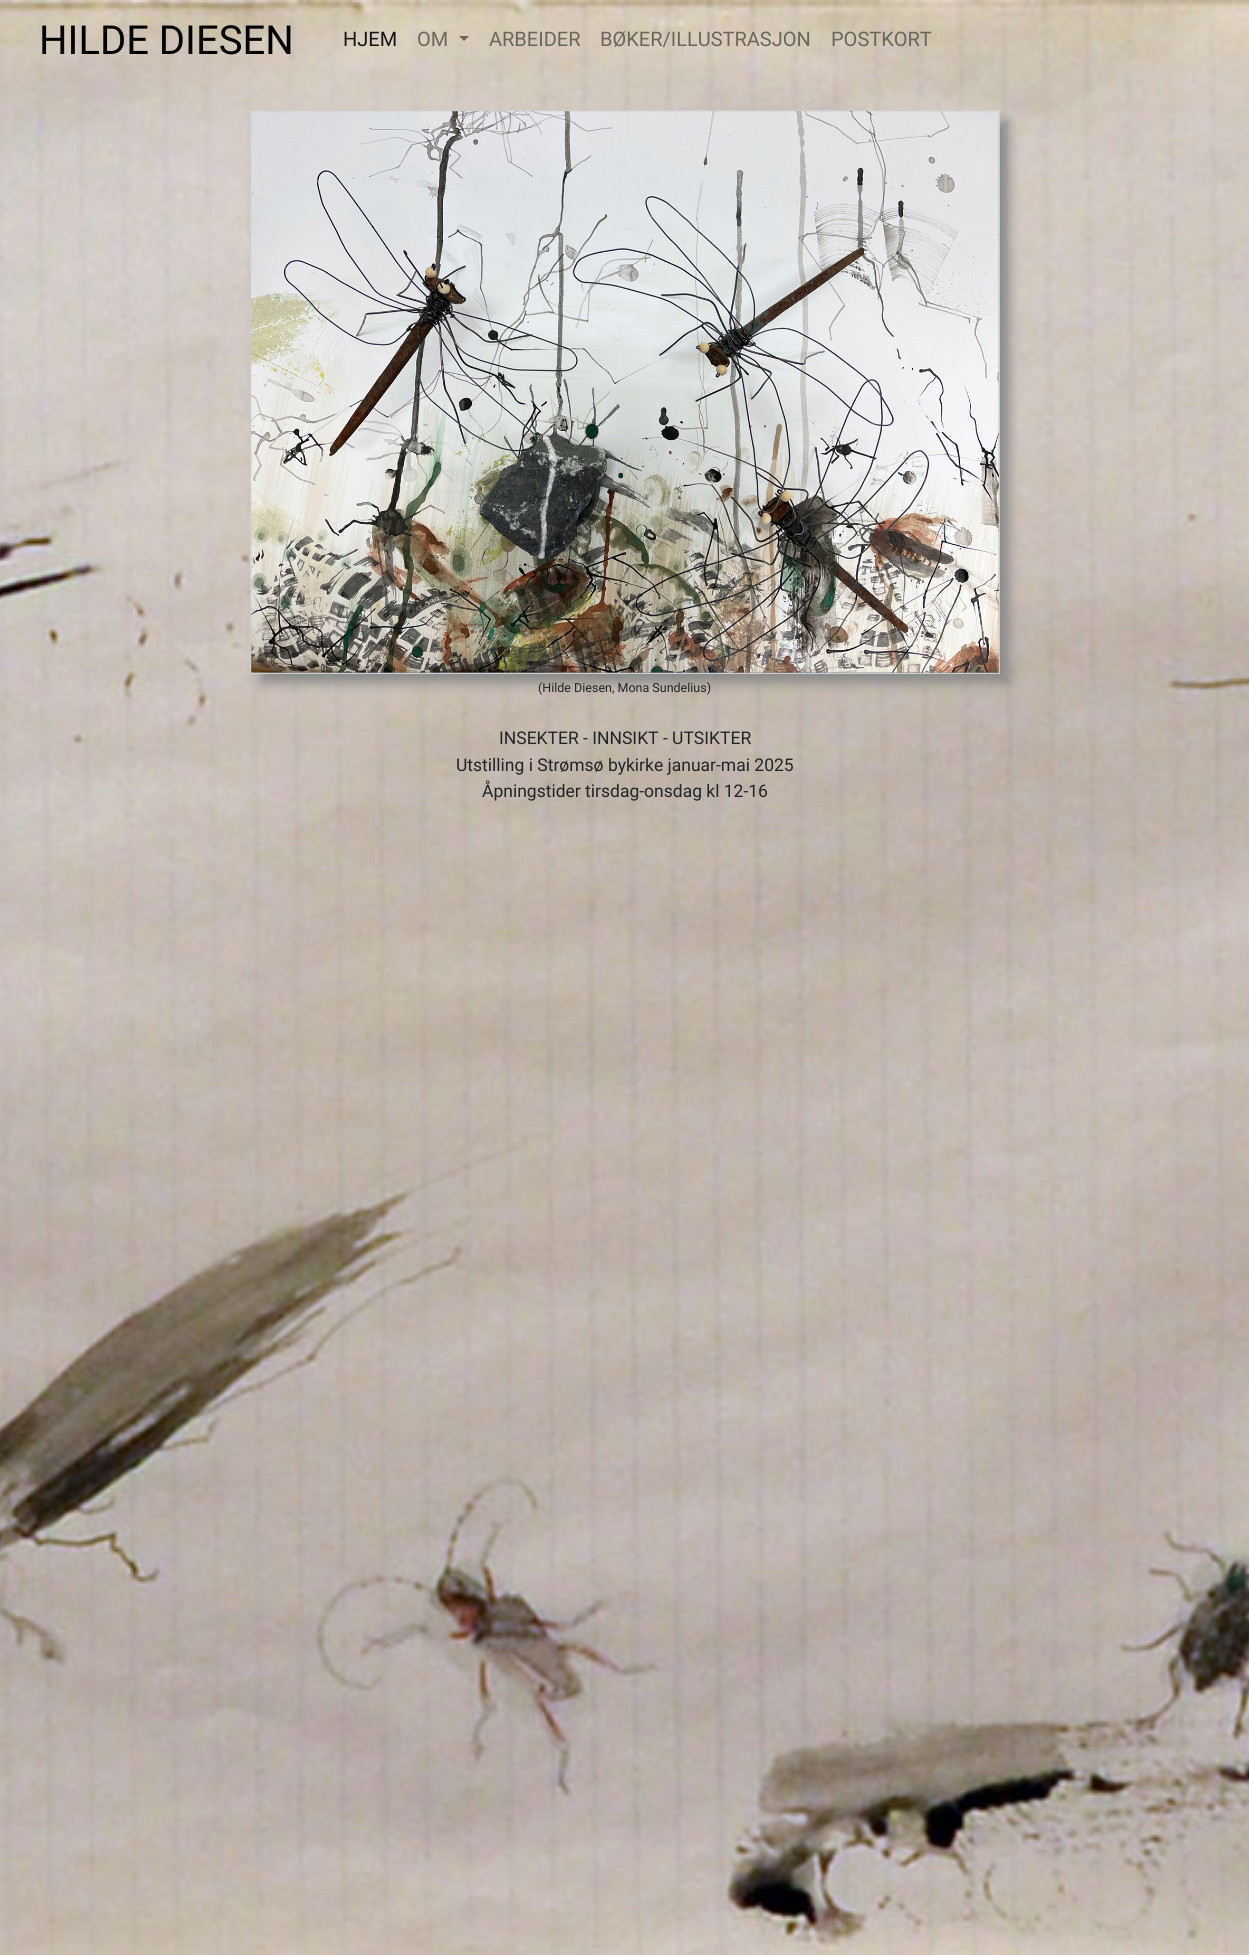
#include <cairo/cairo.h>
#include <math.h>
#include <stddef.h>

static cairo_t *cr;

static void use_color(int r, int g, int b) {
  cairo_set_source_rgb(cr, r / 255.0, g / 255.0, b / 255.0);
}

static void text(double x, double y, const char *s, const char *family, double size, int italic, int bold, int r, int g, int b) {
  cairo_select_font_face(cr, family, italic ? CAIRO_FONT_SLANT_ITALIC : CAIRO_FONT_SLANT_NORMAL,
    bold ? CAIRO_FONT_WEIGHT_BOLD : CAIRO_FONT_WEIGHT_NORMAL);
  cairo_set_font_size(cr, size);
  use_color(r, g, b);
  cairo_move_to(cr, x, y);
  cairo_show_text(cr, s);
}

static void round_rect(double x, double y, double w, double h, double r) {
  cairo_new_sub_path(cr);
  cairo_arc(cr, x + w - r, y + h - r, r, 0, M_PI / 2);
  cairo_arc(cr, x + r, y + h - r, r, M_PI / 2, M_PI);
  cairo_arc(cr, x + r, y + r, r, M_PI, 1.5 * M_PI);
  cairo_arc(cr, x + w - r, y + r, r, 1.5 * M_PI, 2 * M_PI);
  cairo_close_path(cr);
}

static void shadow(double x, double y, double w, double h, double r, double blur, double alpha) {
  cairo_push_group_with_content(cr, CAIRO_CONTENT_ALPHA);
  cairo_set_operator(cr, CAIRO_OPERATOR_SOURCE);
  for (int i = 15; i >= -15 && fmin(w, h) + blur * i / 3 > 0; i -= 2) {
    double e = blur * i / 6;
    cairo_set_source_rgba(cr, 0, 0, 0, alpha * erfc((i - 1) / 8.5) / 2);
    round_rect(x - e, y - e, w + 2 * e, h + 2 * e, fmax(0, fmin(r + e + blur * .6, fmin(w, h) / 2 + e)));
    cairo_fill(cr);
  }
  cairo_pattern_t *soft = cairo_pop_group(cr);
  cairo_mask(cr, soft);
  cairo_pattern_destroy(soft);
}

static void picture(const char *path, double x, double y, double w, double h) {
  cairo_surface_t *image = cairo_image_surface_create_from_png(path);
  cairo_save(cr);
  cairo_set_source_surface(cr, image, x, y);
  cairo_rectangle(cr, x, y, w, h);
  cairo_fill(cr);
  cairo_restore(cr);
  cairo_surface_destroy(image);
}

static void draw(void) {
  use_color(255, 255, 255);
  cairo_paint(cr);
  picture("img_01.png", 0, 0, 1249, 1955);
  cairo_set_source_rgba(cr, 0, 0, 0, 0.5);
  cairo_new_path(cr);
  cairo_move_to(cr, 459, 36);
  cairo_line_to(cr, 469, 36);
  cairo_line_to(cr, 464, 41);
  cairo_close_path(cr);
  cairo_fill(cr);
  use_color(137, 137, 137);
  shadow(261, 121, 748, 562, 0, 6, 1);
  cairo_rectangle(cr, 250.5, 110.5, 749, 563);
  use_color(205, 205, 205);
  cairo_set_line_width(cr, 1);
  cairo_stroke(cr);
  picture("img_02.png", 251, 111, 748, 562);
  text(39, 54, "HILDE DIESEN", "Roboto", 40, 0, 0, 0, 0, 0);
  text(343, 46, "HJEM", "Roboto", 20, 0, 0, 22, 21, 19);
  text(417, 46, "OM", "Roboto", 20, 0, 0, 107, 101, 92);
  text(489, 46, "ARBEIDER", "Roboto", 20, 0, 0, 107, 101, 92);
  text(600, 46, "BØKER/ILLUSTRASJON", "Roboto", 20, 0, 0, 107, 101, 92);
  text(831, 46, "POSTKORT", "Roboto", 20, 0, 0, 107, 101, 92);
  text(538, 692, "(Hilde Diesen, Mona Sundelius)", "Roboto", 12.5, 0, 0, 33, 37, 41);
  text(499, 744, "INSEKTER - INNSIKT - UTSIKTER", "Roboto", 17.5, 0, 0, 33, 37, 41);
  text(456, 771, "Utstilling i Strømsø bykirke januar-mai 2025", "Roboto", 17.5, 0, 0, 33, 37, 41);
  text(482, 797, "Åpningstider tirsdag-onsdag kl 12-16", "Roboto", 17.5, 0, 0, 33, 37, 41);
}

int main(void) {
  cairo_surface_t *surface = cairo_image_surface_create(CAIRO_FORMAT_RGB24, 1249, 1955);
  cr = cairo_create(surface);
  cairo_font_options_t *options = cairo_font_options_create();
  cairo_font_options_set_hint_metrics(options, CAIRO_HINT_METRICS_OFF);
  cairo_font_options_set_hint_style(options, CAIRO_HINT_STYLE_NONE);
  cairo_set_font_options(cr, options);
  cairo_set_miter_limit(cr, 4);
  draw();
  cairo_surface_write_to_png(surface, "out.png");
  cairo_font_options_destroy(options);
  cairo_destroy(cr);
  cairo_surface_destroy(surface);
  return 0;
}
